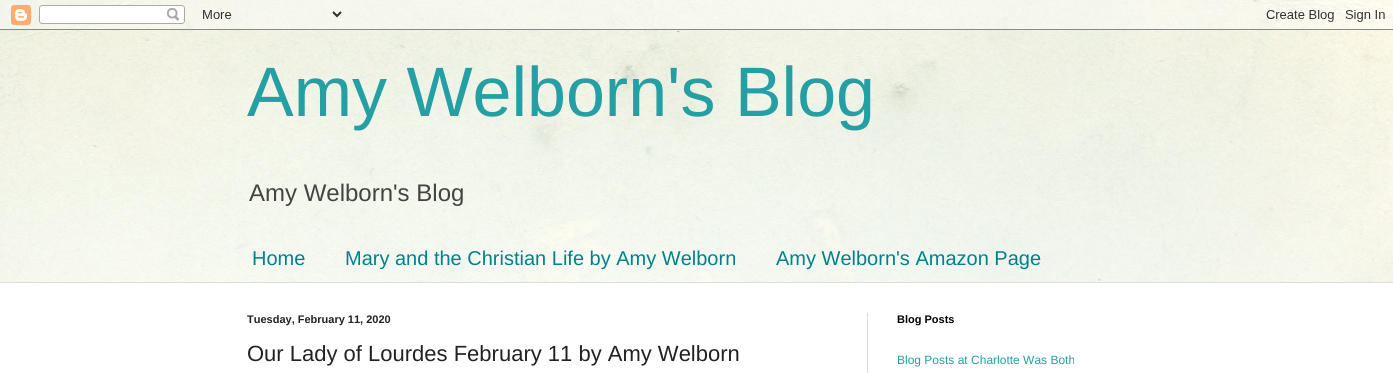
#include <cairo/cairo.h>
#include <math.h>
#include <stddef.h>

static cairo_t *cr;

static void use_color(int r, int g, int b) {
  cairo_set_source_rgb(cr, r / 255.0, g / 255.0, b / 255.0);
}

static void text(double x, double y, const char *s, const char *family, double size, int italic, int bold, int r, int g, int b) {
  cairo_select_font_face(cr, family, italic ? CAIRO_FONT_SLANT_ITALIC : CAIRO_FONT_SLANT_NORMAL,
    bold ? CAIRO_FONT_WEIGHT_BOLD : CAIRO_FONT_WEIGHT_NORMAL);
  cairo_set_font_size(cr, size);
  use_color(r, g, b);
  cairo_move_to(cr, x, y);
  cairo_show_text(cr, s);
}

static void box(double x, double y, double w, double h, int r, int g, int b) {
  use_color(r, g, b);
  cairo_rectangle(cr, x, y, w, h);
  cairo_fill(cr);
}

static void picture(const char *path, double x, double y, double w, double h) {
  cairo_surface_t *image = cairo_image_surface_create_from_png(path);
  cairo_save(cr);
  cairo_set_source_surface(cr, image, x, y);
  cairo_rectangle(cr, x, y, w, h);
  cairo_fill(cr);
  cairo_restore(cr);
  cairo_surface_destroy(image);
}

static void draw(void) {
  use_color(255, 255, 255);
  cairo_paint(cr);
  picture("img_01.png", 0, 0, 1393, 282);
  picture("img_02.png", 0, 0, 1393, 282);
  picture("img_03.png", 0, 0, 1393, 30);
  box(0, 282, 1393, 1, 221, 221, 221);
  box(867, 313, 1, 60, 221, 221, 221);
  text(247, 116, "Amy Welborn's Blog", "Liberation Sans", 70, 0, 0, 36, 159, 163);
  text(249, 201, "Amy Welborn's Blog", "Liberation Sans", 24, 0, 0, 68, 68, 68);
  text(252, 265, "Home", "Liberation Sans", 20, 0, 0, 0, 129, 139);
  text(345, 265, "Mary and the Christian Life by Amy Welborn", "Liberation Sans", 20, 0, 0, 0, 129, 139);
  text(776, 265, "Amy Welborn's Amazon Page", "Liberation Sans", 20, 0, 0, 0, 129, 139);
  text(247, 323, "Tuesday, February 11, 2020", "Liberation Sans", 11, 0, 1, 34, 34, 34);
  text(247, 361, "Our Lady of Lourdes February 11 by Amy Welborn", "Liberation Sans", 22, 0, 0, 34, 34, 34);
  text(897, 323, "Blog Posts", "Liberation Sans", 11, 0, 1, 0, 0, 0);
  text(897, 364, "Blog Posts at Charlotte Was Both", "Liberation Sans", 12, 0, 0, 36, 159, 163);
}

int main(void) {
  cairo_surface_t *surface = cairo_image_surface_create(CAIRO_FORMAT_RGB24, 1393, 373);
  cr = cairo_create(surface);
  cairo_font_options_t *options = cairo_font_options_create();
  cairo_font_options_set_hint_metrics(options, CAIRO_HINT_METRICS_OFF);
  cairo_font_options_set_hint_style(options, CAIRO_HINT_STYLE_NONE);
  cairo_set_font_options(cr, options);
  cairo_set_miter_limit(cr, 4);
  draw();
  cairo_surface_write_to_png(surface, "out.png");
  cairo_font_options_destroy(options);
  cairo_destroy(cr);
  cairo_surface_destroy(surface);
  return 0;
}
